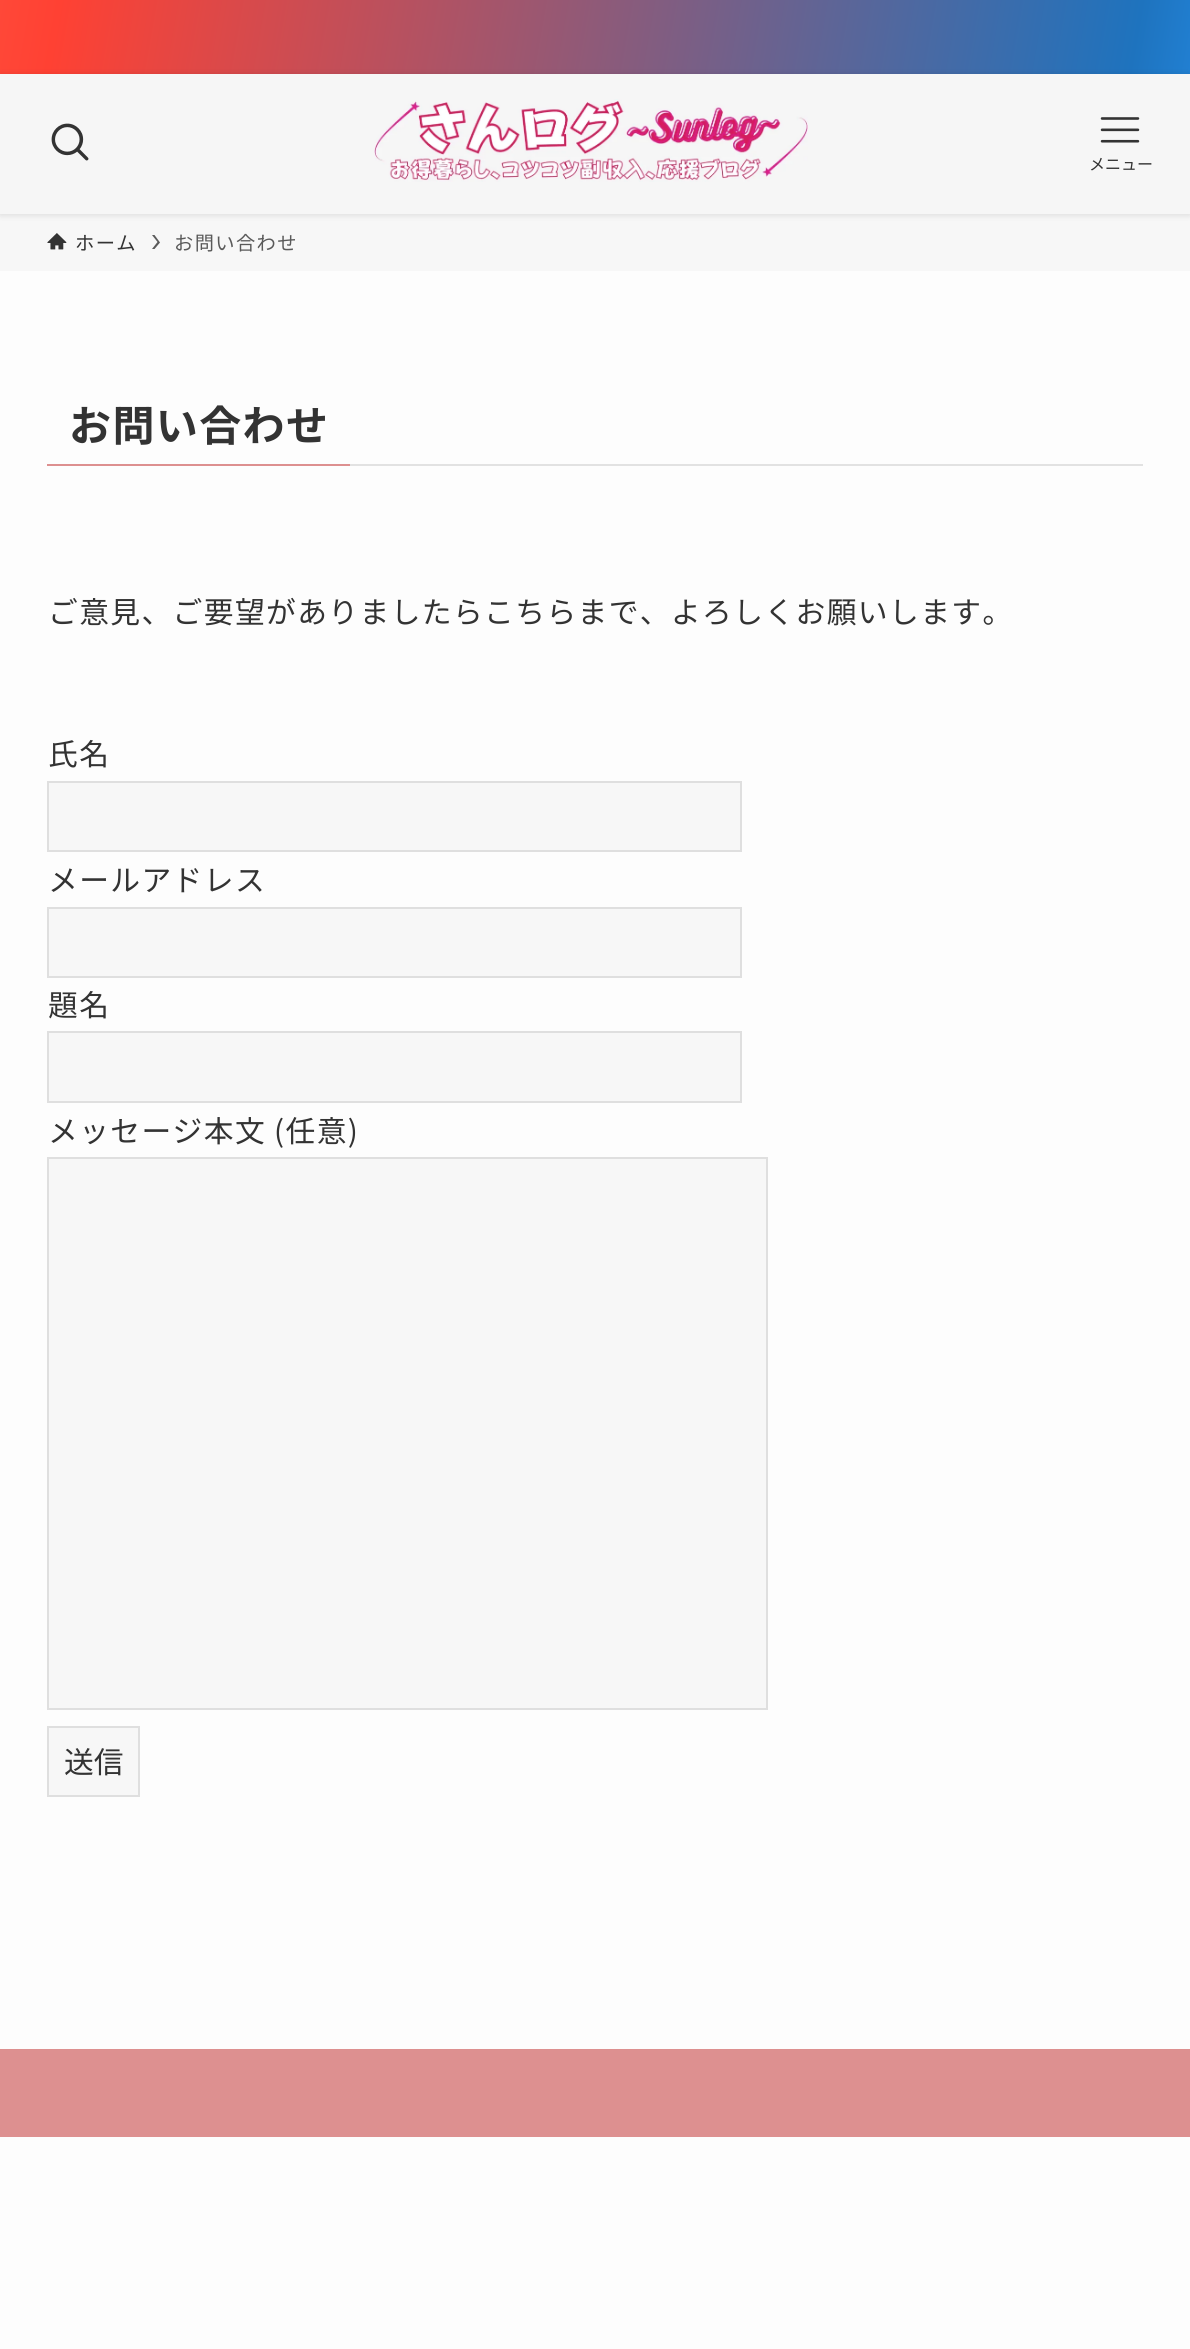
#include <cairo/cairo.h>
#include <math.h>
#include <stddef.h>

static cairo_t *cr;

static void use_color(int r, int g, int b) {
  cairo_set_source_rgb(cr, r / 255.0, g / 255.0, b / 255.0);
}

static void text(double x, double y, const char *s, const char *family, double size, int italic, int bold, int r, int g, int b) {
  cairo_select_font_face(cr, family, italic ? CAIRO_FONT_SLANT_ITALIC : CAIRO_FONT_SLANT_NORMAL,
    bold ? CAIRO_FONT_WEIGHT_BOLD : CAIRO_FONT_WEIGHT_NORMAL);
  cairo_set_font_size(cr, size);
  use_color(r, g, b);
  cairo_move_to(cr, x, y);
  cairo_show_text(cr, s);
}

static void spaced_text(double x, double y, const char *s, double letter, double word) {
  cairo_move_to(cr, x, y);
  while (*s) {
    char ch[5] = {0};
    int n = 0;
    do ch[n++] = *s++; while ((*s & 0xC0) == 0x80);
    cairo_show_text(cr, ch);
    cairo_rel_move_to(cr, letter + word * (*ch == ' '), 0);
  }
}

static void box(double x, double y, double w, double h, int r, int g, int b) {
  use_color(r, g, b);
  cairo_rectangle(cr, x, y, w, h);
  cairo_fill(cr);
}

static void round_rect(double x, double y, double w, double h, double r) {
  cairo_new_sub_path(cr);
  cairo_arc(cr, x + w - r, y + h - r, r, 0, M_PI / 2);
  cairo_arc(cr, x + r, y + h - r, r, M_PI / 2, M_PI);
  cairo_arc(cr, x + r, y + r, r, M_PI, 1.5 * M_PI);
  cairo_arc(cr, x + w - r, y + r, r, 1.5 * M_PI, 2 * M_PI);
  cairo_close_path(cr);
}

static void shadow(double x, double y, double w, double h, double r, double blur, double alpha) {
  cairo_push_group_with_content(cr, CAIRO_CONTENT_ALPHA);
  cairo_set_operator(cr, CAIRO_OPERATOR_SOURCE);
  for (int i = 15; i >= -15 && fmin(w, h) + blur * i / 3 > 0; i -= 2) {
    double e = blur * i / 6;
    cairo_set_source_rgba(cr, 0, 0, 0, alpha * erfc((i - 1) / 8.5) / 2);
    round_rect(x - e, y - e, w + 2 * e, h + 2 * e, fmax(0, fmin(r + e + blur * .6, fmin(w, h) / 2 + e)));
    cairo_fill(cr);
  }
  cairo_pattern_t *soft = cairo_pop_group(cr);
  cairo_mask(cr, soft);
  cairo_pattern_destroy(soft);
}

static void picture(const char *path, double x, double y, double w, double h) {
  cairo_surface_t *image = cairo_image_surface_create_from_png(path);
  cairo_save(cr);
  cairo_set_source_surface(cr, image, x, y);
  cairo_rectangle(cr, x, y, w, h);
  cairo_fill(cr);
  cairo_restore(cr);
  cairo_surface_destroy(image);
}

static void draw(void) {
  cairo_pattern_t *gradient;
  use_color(253, 253, 253);
  cairo_paint(cr);
  gradient = cairo_pattern_create_linear(12, -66, 1178, 140);
  cairo_pattern_add_color_stop_rgba(gradient, 0, 1, 0.282, 0.22, 1);
  cairo_pattern_add_color_stop_rgba(gradient, 0.05, 1, 0.255, 0.2, 1);
  cairo_pattern_add_color_stop_rgba(gradient, 0.95, 0.118, 0.451, 0.745, 1);
  cairo_pattern_add_color_stop_rgba(gradient, 1, 0.129, 0.498, 0.82, 1);
  cairo_set_source(cr, gradient);
  cairo_pattern_destroy(gradient);
  cairo_rectangle(cr, 0, 0, 1190, 74);
  cairo_fill(cr);
  box(0, 214, 1190, 57, 247, 247, 247);
  use_color(0, 0, 0);
  shadow(0, 75, 1190, 140, 0, 3.5, 0.12);
  box(0, 74, 1190, 140, 246, 246, 246);
  picture("img_01.png", 51, 123, 38, 38);
  picture("img_02.png", 374, 99, 434, 83);
  picture("img_03.png", 1100, 117, 40, 26);
  picture("img_04.png", 47, 233, 20, 17);
  use_color(90, 90, 90);
  cairo_new_path(cr);
  cairo_move_to(cr, 154.5, 235);
  cairo_line_to(cr, 152, 235);
  cairo_line_to(cr, 157.5, 242);
  cairo_line_to(cr, 152, 249);
  cairo_line_to(cr, 154.5, 249);
  cairo_line_to(cr, 160, 242.5);
  cairo_close_path(cr);
  cairo_fill(cr);
  box(350, 464, 793, 2, 226, 226, 226);
  box(47, 464, 303, 2, 221, 144, 144);
  use_color(247, 247, 247);
  cairo_rectangle(cr, 48, 782, 693, 69);
  cairo_fill_preserve(cr);
  use_color(223, 223, 223);
  cairo_stroke(cr);
  use_color(247, 247, 247);
  cairo_rectangle(cr, 48, 908, 693, 69);
  cairo_fill_preserve(cr);
  use_color(223, 223, 223);
  cairo_stroke(cr);
  use_color(247, 247, 247);
  cairo_rectangle(cr, 48, 1032, 693, 70);
  cairo_fill_preserve(cr);
  use_color(223, 223, 223);
  cairo_stroke(cr);
  use_color(247, 247, 247);
  cairo_rectangle(cr, 48, 1158, 719, 551);
  cairo_fill_preserve(cr);
  use_color(223, 223, 223);
  cairo_stroke(cr);
  use_color(247, 247, 247);
  cairo_rectangle(cr, 48, 1727, 91, 69);
  cairo_fill_preserve(cr);
  use_color(223, 223, 223);
  cairo_stroke(cr);
  box(0, 2049, 1190, 88, 221, 144, 144);
  text(1089, 170, "メニュー", "Noto Sans JP", 16, 0, 0, 51, 51, 51);
  cairo_set_font_size(cr, 19.25);
  spaced_text(75, 250, "ホーム", 1.4, 0);
  use_color(90, 90, 90);
  spaced_text(174, 250, "お問い合わせ", 1.4, 0);
  cairo_select_font_face(cr, "Noto Sans JP", CAIRO_FONT_SLANT_NORMAL, CAIRO_FONT_WEIGHT_BOLD);
  cairo_set_font_size(cr, 42);
  use_color(51, 51, 51);
  spaced_text(69, 441, "お問い合わせ", 1.4, 0);
  cairo_select_font_face(cr, "Noto Sans JP", CAIRO_FONT_SLANT_NORMAL, CAIRO_FONT_WEIGHT_NORMAL);
  cairo_set_font_size(cr, 29.75);
  spaced_text(48, 623, "ご意見、ご要望がありましたらこちらまで、よろしくお願いします。", 1.4, 0);
  spaced_text(48, 765, "氏名", 1.4, 0);
  spaced_text(48, 891, "メールアドレス", 1.4, 0);
  spaced_text(48, 1016, "題名", 1.4, 0);
  spaced_text(48, 1142, "メッセージ本文 (任意)", 1.4, 0);
  text(64, 1773, "送信", "Noto Sans JP", 29.75, 0, 0, 51, 51, 51);
}

int main(void) {
  cairo_surface_t *surface = cairo_image_surface_create(CAIRO_FORMAT_RGB24, 1190, 2349);
  cr = cairo_create(surface);
  cairo_font_options_t *options = cairo_font_options_create();
  cairo_font_options_set_hint_metrics(options, CAIRO_HINT_METRICS_OFF);
  cairo_font_options_set_hint_style(options, CAIRO_HINT_STYLE_NONE);
  cairo_set_font_options(cr, options);
  cairo_set_miter_limit(cr, 4);
  draw();
  cairo_surface_write_to_png(surface, "out.png");
  cairo_font_options_destroy(options);
  cairo_destroy(cr);
  cairo_surface_destroy(surface);
  return 0;
}
